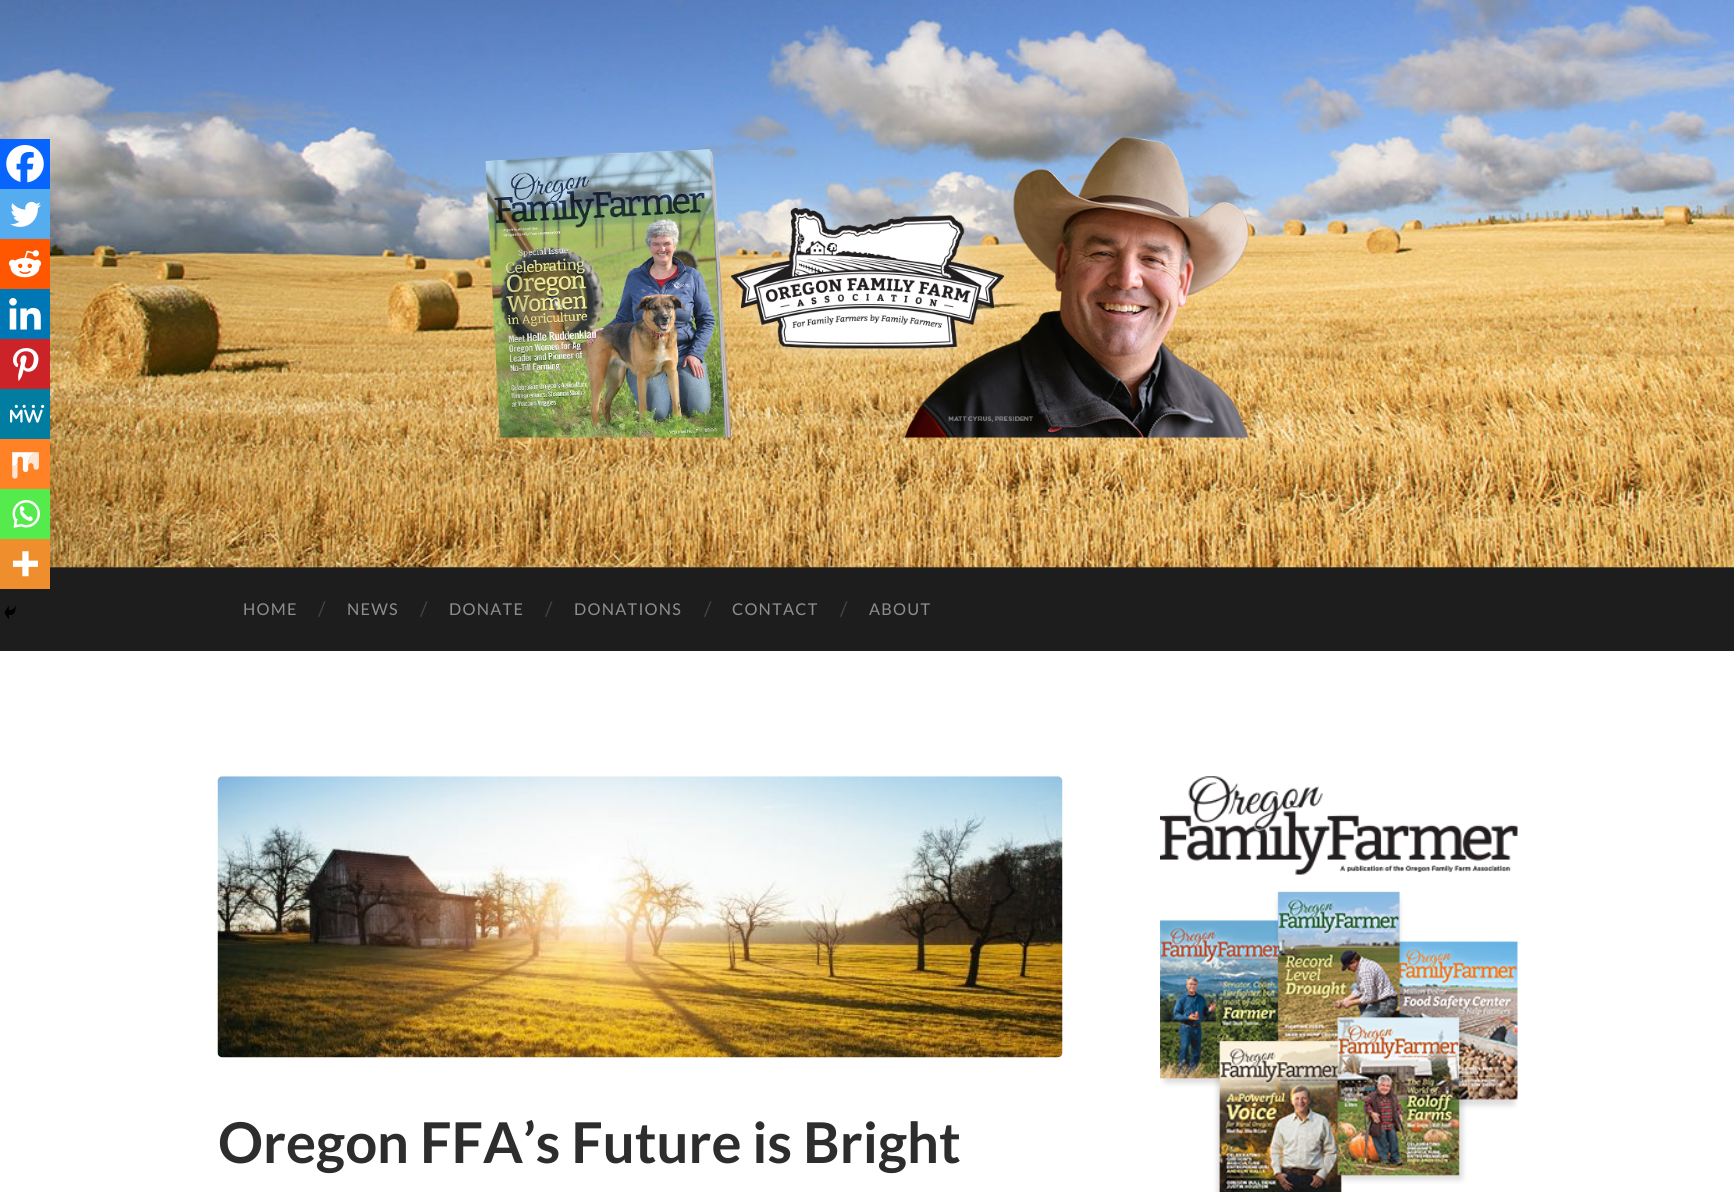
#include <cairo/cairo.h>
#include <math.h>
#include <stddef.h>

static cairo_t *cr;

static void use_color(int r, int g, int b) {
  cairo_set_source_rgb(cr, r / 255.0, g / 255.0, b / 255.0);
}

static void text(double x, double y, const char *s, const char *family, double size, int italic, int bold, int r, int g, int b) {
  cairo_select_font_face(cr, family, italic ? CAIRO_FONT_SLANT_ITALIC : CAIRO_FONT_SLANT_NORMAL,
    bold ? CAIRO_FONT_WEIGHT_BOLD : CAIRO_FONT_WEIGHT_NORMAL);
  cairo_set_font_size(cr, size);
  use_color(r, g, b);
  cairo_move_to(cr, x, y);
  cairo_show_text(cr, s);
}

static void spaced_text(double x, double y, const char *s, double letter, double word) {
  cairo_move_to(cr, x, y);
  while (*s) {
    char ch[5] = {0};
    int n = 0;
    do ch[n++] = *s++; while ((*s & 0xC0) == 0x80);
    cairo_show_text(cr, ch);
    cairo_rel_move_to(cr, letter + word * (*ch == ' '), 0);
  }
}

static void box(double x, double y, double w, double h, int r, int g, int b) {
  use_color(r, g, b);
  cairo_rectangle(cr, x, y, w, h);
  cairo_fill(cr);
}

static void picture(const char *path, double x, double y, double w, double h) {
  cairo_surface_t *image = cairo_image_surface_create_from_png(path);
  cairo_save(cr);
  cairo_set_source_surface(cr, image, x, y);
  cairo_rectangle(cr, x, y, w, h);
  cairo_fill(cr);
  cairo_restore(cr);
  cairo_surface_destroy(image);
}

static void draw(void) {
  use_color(255, 255, 255);
  cairo_paint(cr);
  box(50, 567, 1684, 1, 38, 38, 38);
  picture("img_01.png", 0, 0, 1734, 568);
  picture("img_02.png", 485, 136, 766, 302);
  box(0, 568, 1734, 83, 29, 29, 29);
  box(0, 139, 50, 50, 7, 101, 254);
  picture("img_03.png", 6, 145, 38, 38);
  box(0, 189, 50, 50, 85, 172, 238);
  picture("img_04.png", 10, 201, 31, 26);
  box(0, 239, 50, 50, 255, 87, 0);
  picture("img_05.png", 8, 250, 34, 28);
  box(0, 289, 50, 50, 0, 119, 181);
  picture("img_06.png", 9, 298, 32, 32);
  box(0, 339, 50, 50, 204, 35, 41);
  picture("img_07.png", 13, 348, 26, 33);
  box(0, 389, 50, 50, 0, 125, 161);
  picture("img_08.png", 10, 404, 35, 19);
  box(0, 439, 50, 50, 255, 130, 38);
  picture("img_09.png", 12, 452, 27, 27);
  box(0, 489, 50, 50, 85, 235, 76);
  picture("img_10.png", 12, 500, 28, 28);
  box(0, 539, 50, 50, 238, 142, 45);
  picture("img_11.png", 12, 551, 26, 26);
  picture("img_12.png", 4, 606, 12, 13);
  picture("img_13.png", 217, 776, 846, 282);
  picture("img_14.png", 1160, 776, 358, 416);
  cairo_select_font_face(cr, "Lato", CAIRO_FONT_SLANT_NORMAL, CAIRO_FONT_WEIGHT_NORMAL);
  cairo_set_font_size(cr, 16.25);
  use_color(142, 142, 142);
  spaced_text(243, 615, "HOME", 1.25, 0);
  text(318, 616, "/", "Lato", 20, 0, 0, 68, 68, 68);
  cairo_set_font_size(cr, 16.25);
  use_color(142, 142, 142);
  spaced_text(347, 615, "NEWS", 1.25, 0);
  text(420, 616, "/", "Lato", 20, 0, 0, 68, 68, 68);
  cairo_set_font_size(cr, 16.25);
  use_color(142, 142, 142);
  spaced_text(449, 615, "DONATE", 1.25, 0);
  text(545, 616, "/", "Lato", 20, 0, 0, 68, 68, 68);
  cairo_set_font_size(cr, 16.25);
  use_color(142, 142, 142);
  spaced_text(574, 615, "DONATIONS", 1.25, 0);
  text(704, 616, "/", "Lato", 20, 0, 0, 68, 68, 68);
  cairo_set_font_size(cr, 16.25);
  use_color(142, 142, 142);
  spaced_text(732, 615, "CONTACT", 1.25, 0);
  text(840, 616, "/", "Lato", 20, 0, 0, 68, 68, 68);
  cairo_set_font_size(cr, 16.25);
  use_color(142, 142, 142);
  spaced_text(869, 615, "ABOUT", 1.25, 0);
  text(218, 1163, "Oregon FFA’s Future is Bright", "Lato", 56.25, 0, 1, 45, 45, 45);
}

int main(void) {
  cairo_surface_t *surface = cairo_image_surface_create(CAIRO_FORMAT_RGB24, 1734, 1192);
  cr = cairo_create(surface);
  cairo_font_options_t *options = cairo_font_options_create();
  cairo_font_options_set_hint_metrics(options, CAIRO_HINT_METRICS_OFF);
  cairo_font_options_set_hint_style(options, CAIRO_HINT_STYLE_NONE);
  cairo_set_font_options(cr, options);
  cairo_set_miter_limit(cr, 4);
  draw();
  cairo_surface_write_to_png(surface, "out.png");
  cairo_font_options_destroy(options);
  cairo_destroy(cr);
  cairo_surface_destroy(surface);
  return 0;
}
